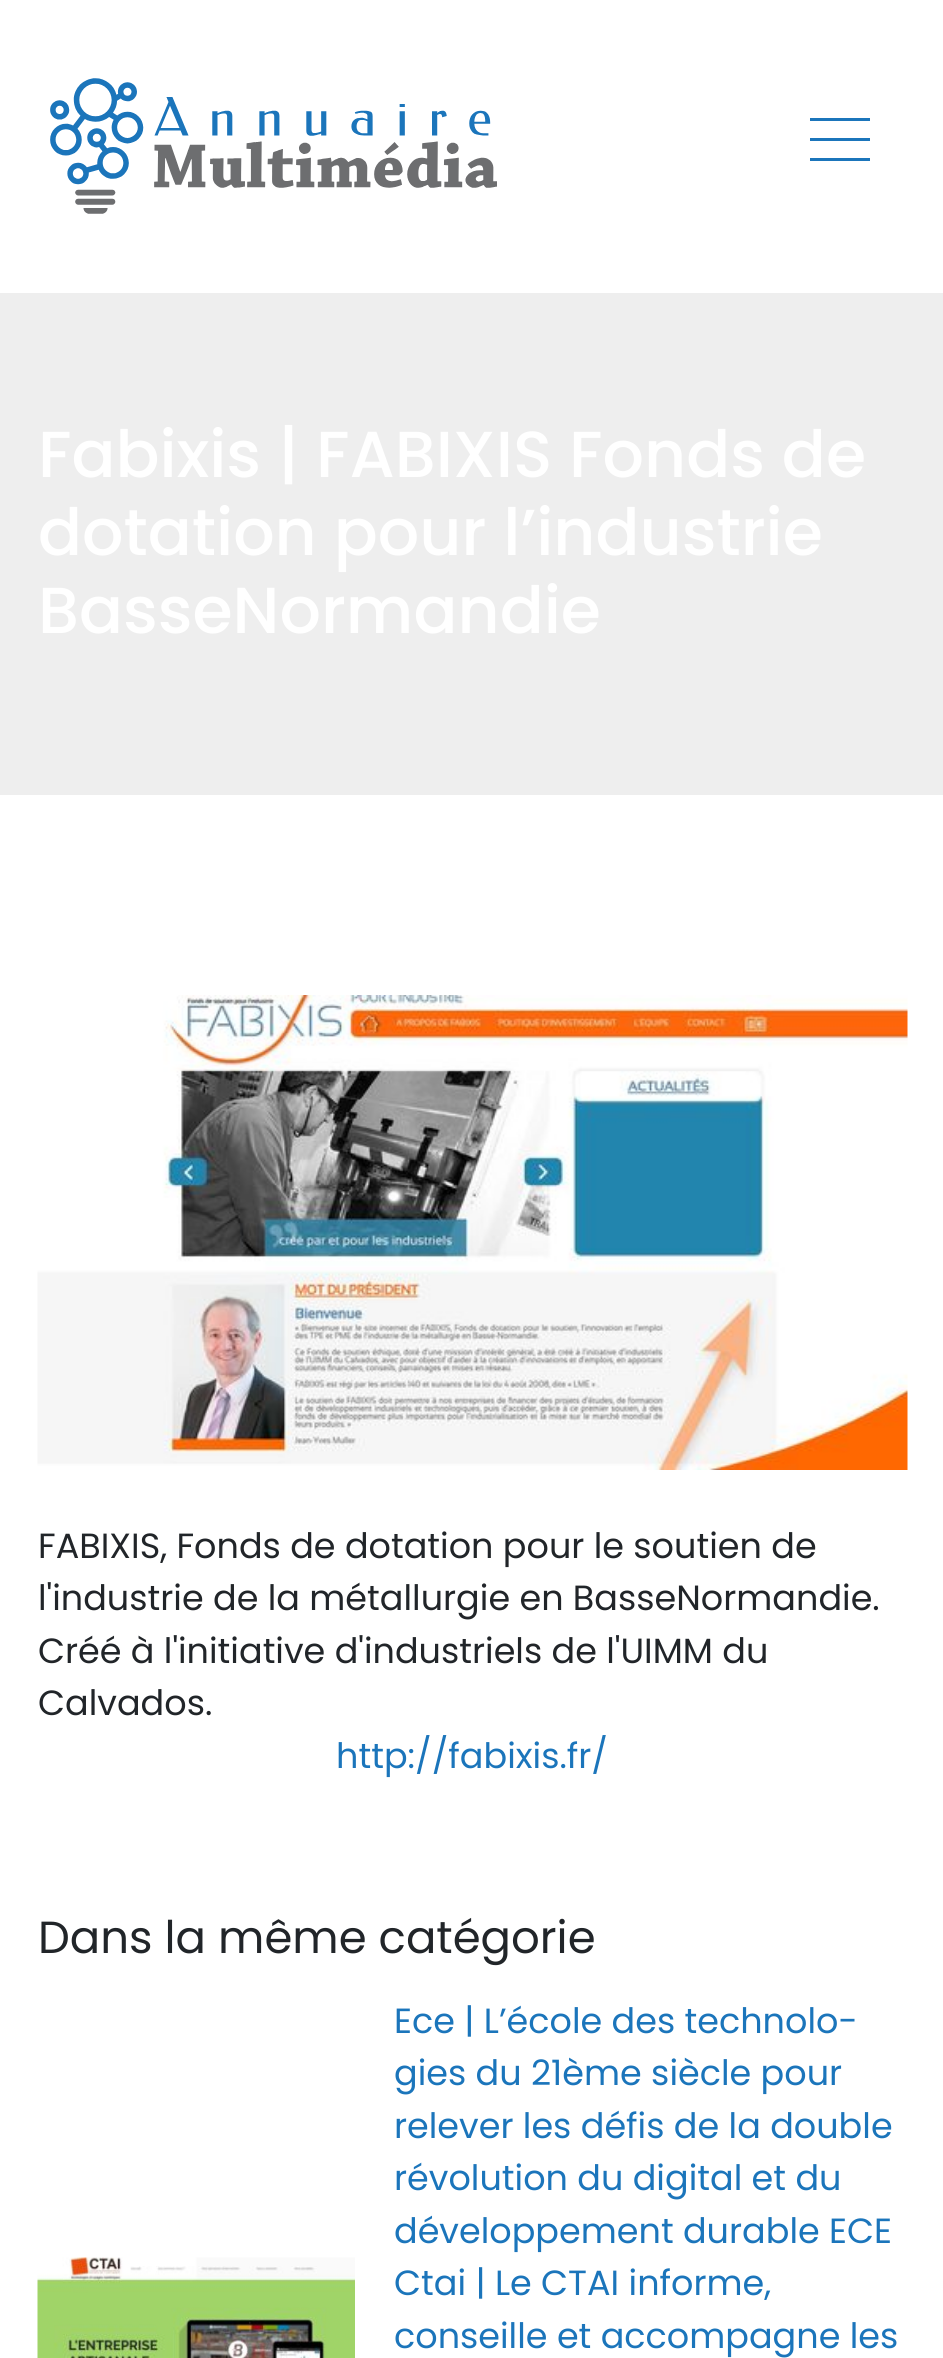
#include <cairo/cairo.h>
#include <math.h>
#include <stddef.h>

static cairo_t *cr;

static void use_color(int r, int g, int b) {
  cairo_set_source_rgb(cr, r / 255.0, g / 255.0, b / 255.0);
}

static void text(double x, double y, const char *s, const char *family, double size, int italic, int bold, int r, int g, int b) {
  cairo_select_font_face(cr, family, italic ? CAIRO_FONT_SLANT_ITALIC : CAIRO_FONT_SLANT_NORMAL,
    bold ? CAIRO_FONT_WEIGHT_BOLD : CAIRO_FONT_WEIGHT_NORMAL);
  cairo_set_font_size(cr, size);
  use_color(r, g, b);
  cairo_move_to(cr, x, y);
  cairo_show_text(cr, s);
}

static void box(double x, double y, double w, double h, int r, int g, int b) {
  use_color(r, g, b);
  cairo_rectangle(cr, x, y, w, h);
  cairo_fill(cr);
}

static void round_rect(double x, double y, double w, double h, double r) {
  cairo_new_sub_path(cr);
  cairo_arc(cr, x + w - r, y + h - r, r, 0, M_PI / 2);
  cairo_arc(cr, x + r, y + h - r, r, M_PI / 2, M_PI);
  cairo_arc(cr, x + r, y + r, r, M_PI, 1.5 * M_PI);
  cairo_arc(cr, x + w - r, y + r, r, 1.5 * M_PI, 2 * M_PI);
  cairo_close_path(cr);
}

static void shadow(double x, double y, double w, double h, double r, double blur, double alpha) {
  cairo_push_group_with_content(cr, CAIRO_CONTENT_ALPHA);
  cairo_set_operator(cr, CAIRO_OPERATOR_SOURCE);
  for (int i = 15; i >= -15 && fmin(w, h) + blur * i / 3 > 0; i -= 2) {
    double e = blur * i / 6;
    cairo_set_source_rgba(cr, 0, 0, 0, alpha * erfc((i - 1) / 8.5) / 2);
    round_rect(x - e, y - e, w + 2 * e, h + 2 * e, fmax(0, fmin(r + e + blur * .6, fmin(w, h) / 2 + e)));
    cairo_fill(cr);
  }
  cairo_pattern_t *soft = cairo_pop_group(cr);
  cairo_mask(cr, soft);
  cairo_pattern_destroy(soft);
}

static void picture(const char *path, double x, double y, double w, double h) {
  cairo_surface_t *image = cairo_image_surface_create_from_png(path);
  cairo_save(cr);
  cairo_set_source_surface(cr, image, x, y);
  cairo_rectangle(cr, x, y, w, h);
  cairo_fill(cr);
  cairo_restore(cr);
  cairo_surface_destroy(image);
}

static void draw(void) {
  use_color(255, 255, 255);
  cairo_paint(cr);
  cairo_save(cr);
  cairo_set_fill_rule(cr, CAIRO_FILL_RULE_EVEN_ODD);
  cairo_new_path(cr);
  cairo_move_to(cr, 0, 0);
  cairo_line_to(cr, 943, 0);
  cairo_line_to(cr, 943, 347);
  cairo_line_to(cr, 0, 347);
  cairo_close_path(cr);
  cairo_move_to(cr, 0, 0);
  cairo_line_to(cr, 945, 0);
  cairo_line_to(cr, 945, 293);
  cairo_line_to(cr, 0, 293);
  cairo_close_path(cr);
  cairo_clip(cr);
  use_color(0, 0, 0);
  shadow(0, 5, 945, 293, 0, 16, 0.1);
  cairo_restore(cr);
  picture("img_01.png", 50, 78, 447, 136);
  box(810, 118, 60, 3, 27, 117, 187);
  box(810, 138, 60, 3, 27, 117, 187);
  box(810, 158, 60, 3, 27, 117, 187);
  box(0, 293, 943, 502, 238, 238, 238);
  picture("img_02.png", 37, 995, 871, 475);
  picture("img_03.png", 37, 2257, 318, 101);
  text(38, 477, "Fabixis | FABIXIS Fonds de", "Poppins Medium", 65, 0, 0, 255, 255, 255);
  text(38, 555, "dotation pour l’industrie", "Poppins Medium", 65, 0, 0, 255, 255, 255);
  text(38, 633, "BasseNormandie", "Poppins Medium", 65, 0, 0, 255, 255, 255);
  text(38, 1558, "FABIXIS, Fonds de dotation pour le soutien de", "Poppins", 35, 0, 0, 33, 37, 41);
  text(38, 1610, "l'industrie de la métallurgie en BasseNormandie.", "Poppins", 35, 0, 0, 33, 37, 41);
  text(38, 1663, "Créé à l'initiative d'industriels de l'UIMM du", "Poppins", 35, 0, 0, 33, 37, 41);
  text(38, 1715, "Calvados.", "Poppins", 35, 0, 0, 33, 37, 41);
  text(336, 1768, "http://fabixis.fr/", "Poppins", 35, 0, 0, 27, 117, 187);
  text(38, 1953, "Dans la même catégorie", "Poppins", 45, 0, 0, 33, 37, 41);
  text(394, 2033, "Ece | L’école des technolo-", "Poppins", 35, 0, 0, 27, 117, 187);
  text(394, 2085, "gies du 21ème siècle pour", "Poppins", 35, 0, 0, 27, 117, 187);
  text(394, 2138, "relever les défis de la double", "Poppins", 35, 0, 0, 27, 117, 187);
  text(394, 2190, "révolution du digital et du", "Poppins", 35, 0, 0, 27, 117, 187);
  text(394, 2243, "développement durable ECE", "Poppins", 35, 0, 0, 27, 117, 187);
  text(394, 2295, "Ctai | Le CTAI informe,", "Poppins", 35, 0, 0, 27, 117, 187);
  text(394, 2348, "conseille et accompagne les", "Poppins", 35, 0, 0, 27, 117, 187);
}

int main(void) {
  cairo_surface_t *surface = cairo_image_surface_create(CAIRO_FORMAT_RGB24, 943, 2358);
  cr = cairo_create(surface);
  cairo_font_options_t *options = cairo_font_options_create();
  cairo_font_options_set_hint_metrics(options, CAIRO_HINT_METRICS_OFF);
  cairo_font_options_set_hint_style(options, CAIRO_HINT_STYLE_NONE);
  cairo_set_font_options(cr, options);
  cairo_set_miter_limit(cr, 4);
  draw();
  cairo_surface_write_to_png(surface, "out.png");
  cairo_font_options_destroy(options);
  cairo_destroy(cr);
  cairo_surface_destroy(surface);
  return 0;
}
